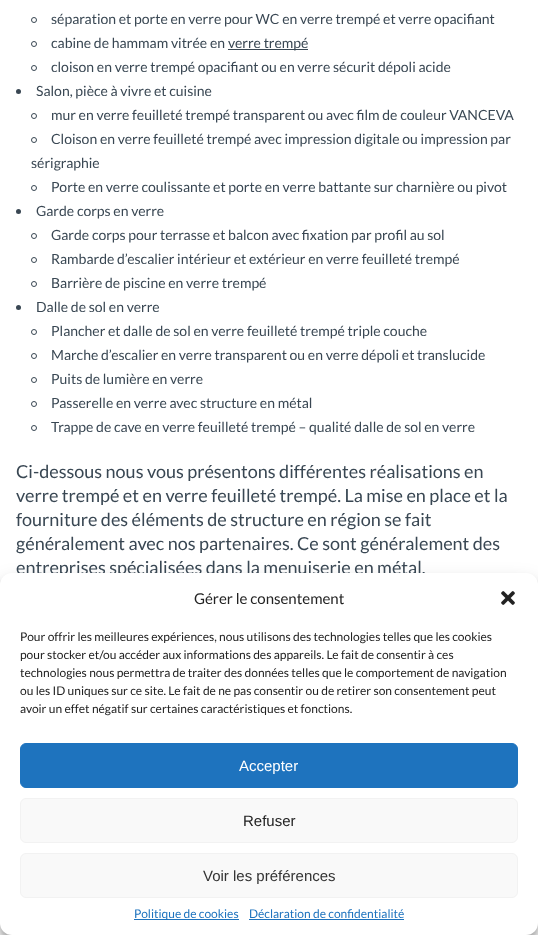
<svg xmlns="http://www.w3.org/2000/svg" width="538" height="935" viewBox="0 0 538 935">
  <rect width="100%" height="100%" fill="#fff"/>
  <circle cx="34" cy="20" r="2.5" fill="none" stroke="#394753"/>
  <circle cx="34" cy="44" r="2.5" fill="none" stroke="#394753"/>
  <path d="M228 49h80v1H228z" fill="#394753"/>
  <circle cx="34" cy="68" r="2.5" fill="none" stroke="#394753"/>
  <circle cx="18.5" cy="91.5" r="2.5" fill="#394753"/>
  <circle cx="34" cy="116" r="2.5" fill="none" stroke="#394753"/>
  <circle cx="34" cy="140" r="2.5" fill="none" stroke="#394753"/>
  <circle cx="34" cy="188" r="2.5" fill="none" stroke="#394753"/>
  <circle cx="18.5" cy="211.5" r="2.5" fill="#394753"/>
  <circle cx="34" cy="236" r="2.5" fill="none" stroke="#394753"/>
  <circle cx="34" cy="260" r="2.5" fill="none" stroke="#394753"/>
  <circle cx="34" cy="284" r="2.5" fill="none" stroke="#394753"/>
  <circle cx="18.5" cy="307.5" r="2.5" fill="#394753"/>
  <circle cx="34" cy="332" r="2.5" fill="none" stroke="#394753"/>
  <circle cx="34" cy="356" r="2.5" fill="none" stroke="#394753"/>
  <circle cx="34" cy="380" r="2.5" fill="none" stroke="#394753"/>
  <circle cx="34" cy="404" r="2.5" fill="none" stroke="#394753"/>
  <circle cx="34" cy="428" r="2.5" fill="none" stroke="#394753"/>
  <rect y="579" width="538" height="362" rx="12" fill="#0000003b" filter="blur(3px)"/>
  <rect y="583" width="538" height="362" rx="12" fill="#00000030" filter="blur(10px)"/>
  <g font-family="Lato" font-size="14" fill="#394753">
    <text x="51" y="24">séparation et porte en verre pour WC en verre trempé et verre opacifiant</text>
    <text x="51" y="48">cabine de hammam vitrée en</text>
    <text x="228" y="48">verre trempé</text>
    <text x="51" y="72">cloison en verre trempé opacifiant ou en verre sécurit dépoli acide</text>
    <text x="36" y="96">Salon, pièce à vivre et cuisine</text>
    <text x="51" y="120">mur en verre feuilleté trempé transparent ou avec film de couleur VANCEVA</text>
    <text x="51" y="144">Cloison en verre feuilleté trempé avec impression digitale ou impression par</text>
    <text x="31" y="168">sérigraphie</text>
    <text x="51" y="192">Porte en verre coulissante et porte en verre battante sur charnière ou pivot</text>
    <text x="36" y="216">Garde corps en verre</text>
    <text x="51" y="240">Garde corps pour terrasse et balcon avec fixation par profil au sol</text>
    <text x="51" y="264">Rambarde d’escalier intérieur et extérieur en verre feuilleté trempé</text>
    <text x="51" y="288">Barrière de piscine en verre trempé</text>
    <text x="36" y="312">Dalle de sol en verre</text>
    <text x="51" y="336">Plancher et dalle de sol en verre feuilleté trempé triple couche</text>
    <text x="51" y="360">Marche d’escalier en verre transparent ou en verre dépoli et translucide</text>
    <text x="51" y="384">Puits de lumière en verre</text>
    <text x="51" y="408">Passerelle en verre avec structure en métal</text>
    <text x="51" y="432">Trappe de cave en verre feuilleté trempé – qualité dalle de sol en verre</text>
  </g>
  <g font-family="Lato" font-size="18" fill="#394753">
    <text x="16" y="478">Ci-dessous nous vous présentons différentes réalisations en</text>
    <text x="16" y="502">verre trempé et en verre feuilleté trempé. La mise en place et la</text>
    <text x="16" y="526">fourniture des éléments de structure en région se fait</text>
    <text x="16" y="550">généralement avec nos partenaires. Ce sont généralement des</text>
    <text x="16" y="574">entreprises spécialisées dans la menuiserie en métal.</text>
  </g>
  <rect y="573" width="538" height="362" rx="12" fill="#fff"/>
  <text x="194" y="604" font-family="Lato" font-size="15" fill="#222">Gérer le consentement</text>
  <image x="501" y="591" width="14" height="14" href="img/1.png"/>
  <g font-family="Lato" font-size="12" fill="#222">
    <text x="20" y="641">Pour offrir les meilleures expériences, nous utilisons des technologies telles que les cookies</text>
    <text x="20" y="659">pour stocker et/ou accéder aux informations des appareils. Le fait de consentir à ces</text>
    <text x="20" y="677">technologies nous permettra de traiter des données telles que le comportement de navigation</text>
    <text x="20" y="695">ou les ID uniques sur ce site. Le fait de ne pas consentir ou de retirer son consentement peut</text>
    <text x="20" y="713">avoir un effet négatif sur certaines caractéristiques et fonctions.</text>
  </g>
  <rect x="20.5" y="743.5" width="497" height="44" rx="5.5" fill="#1e73be" stroke="#1e73be"/>
  <text x="239" y="771" font-family="Liberation Sans" font-size="15" fill="#fff">Accepter</text>
  <rect x="20.5" y="798.5" width="497" height="44" rx="5.5" fill="#f9f9f9" stroke="#f2f2f2"/>
  <text x="243" y="826" font-family="Liberation Sans" font-size="15" fill="#222">Refuser</text>
  <rect x="20.5" y="853.5" width="497" height="44" rx="5.5" fill="#f9f9f9" stroke="#f2f2f2"/>
  <text x="203" y="881" font-family="Liberation Sans" font-size="15" fill="#333">Voir les préférences</text>
  <path d="M134 919h105v1H134z" fill="#1e73be"/>
  <g font-family="Lato" font-size="12" fill="#1e73be">
    <text x="134" y="918">Politique de cookies</text>
    <text x="249" y="918">Déclaration de confidentialité</text>
  </g>
  <path d="M249 919h155v1H249z" fill="#1e73be"/>
</svg>
